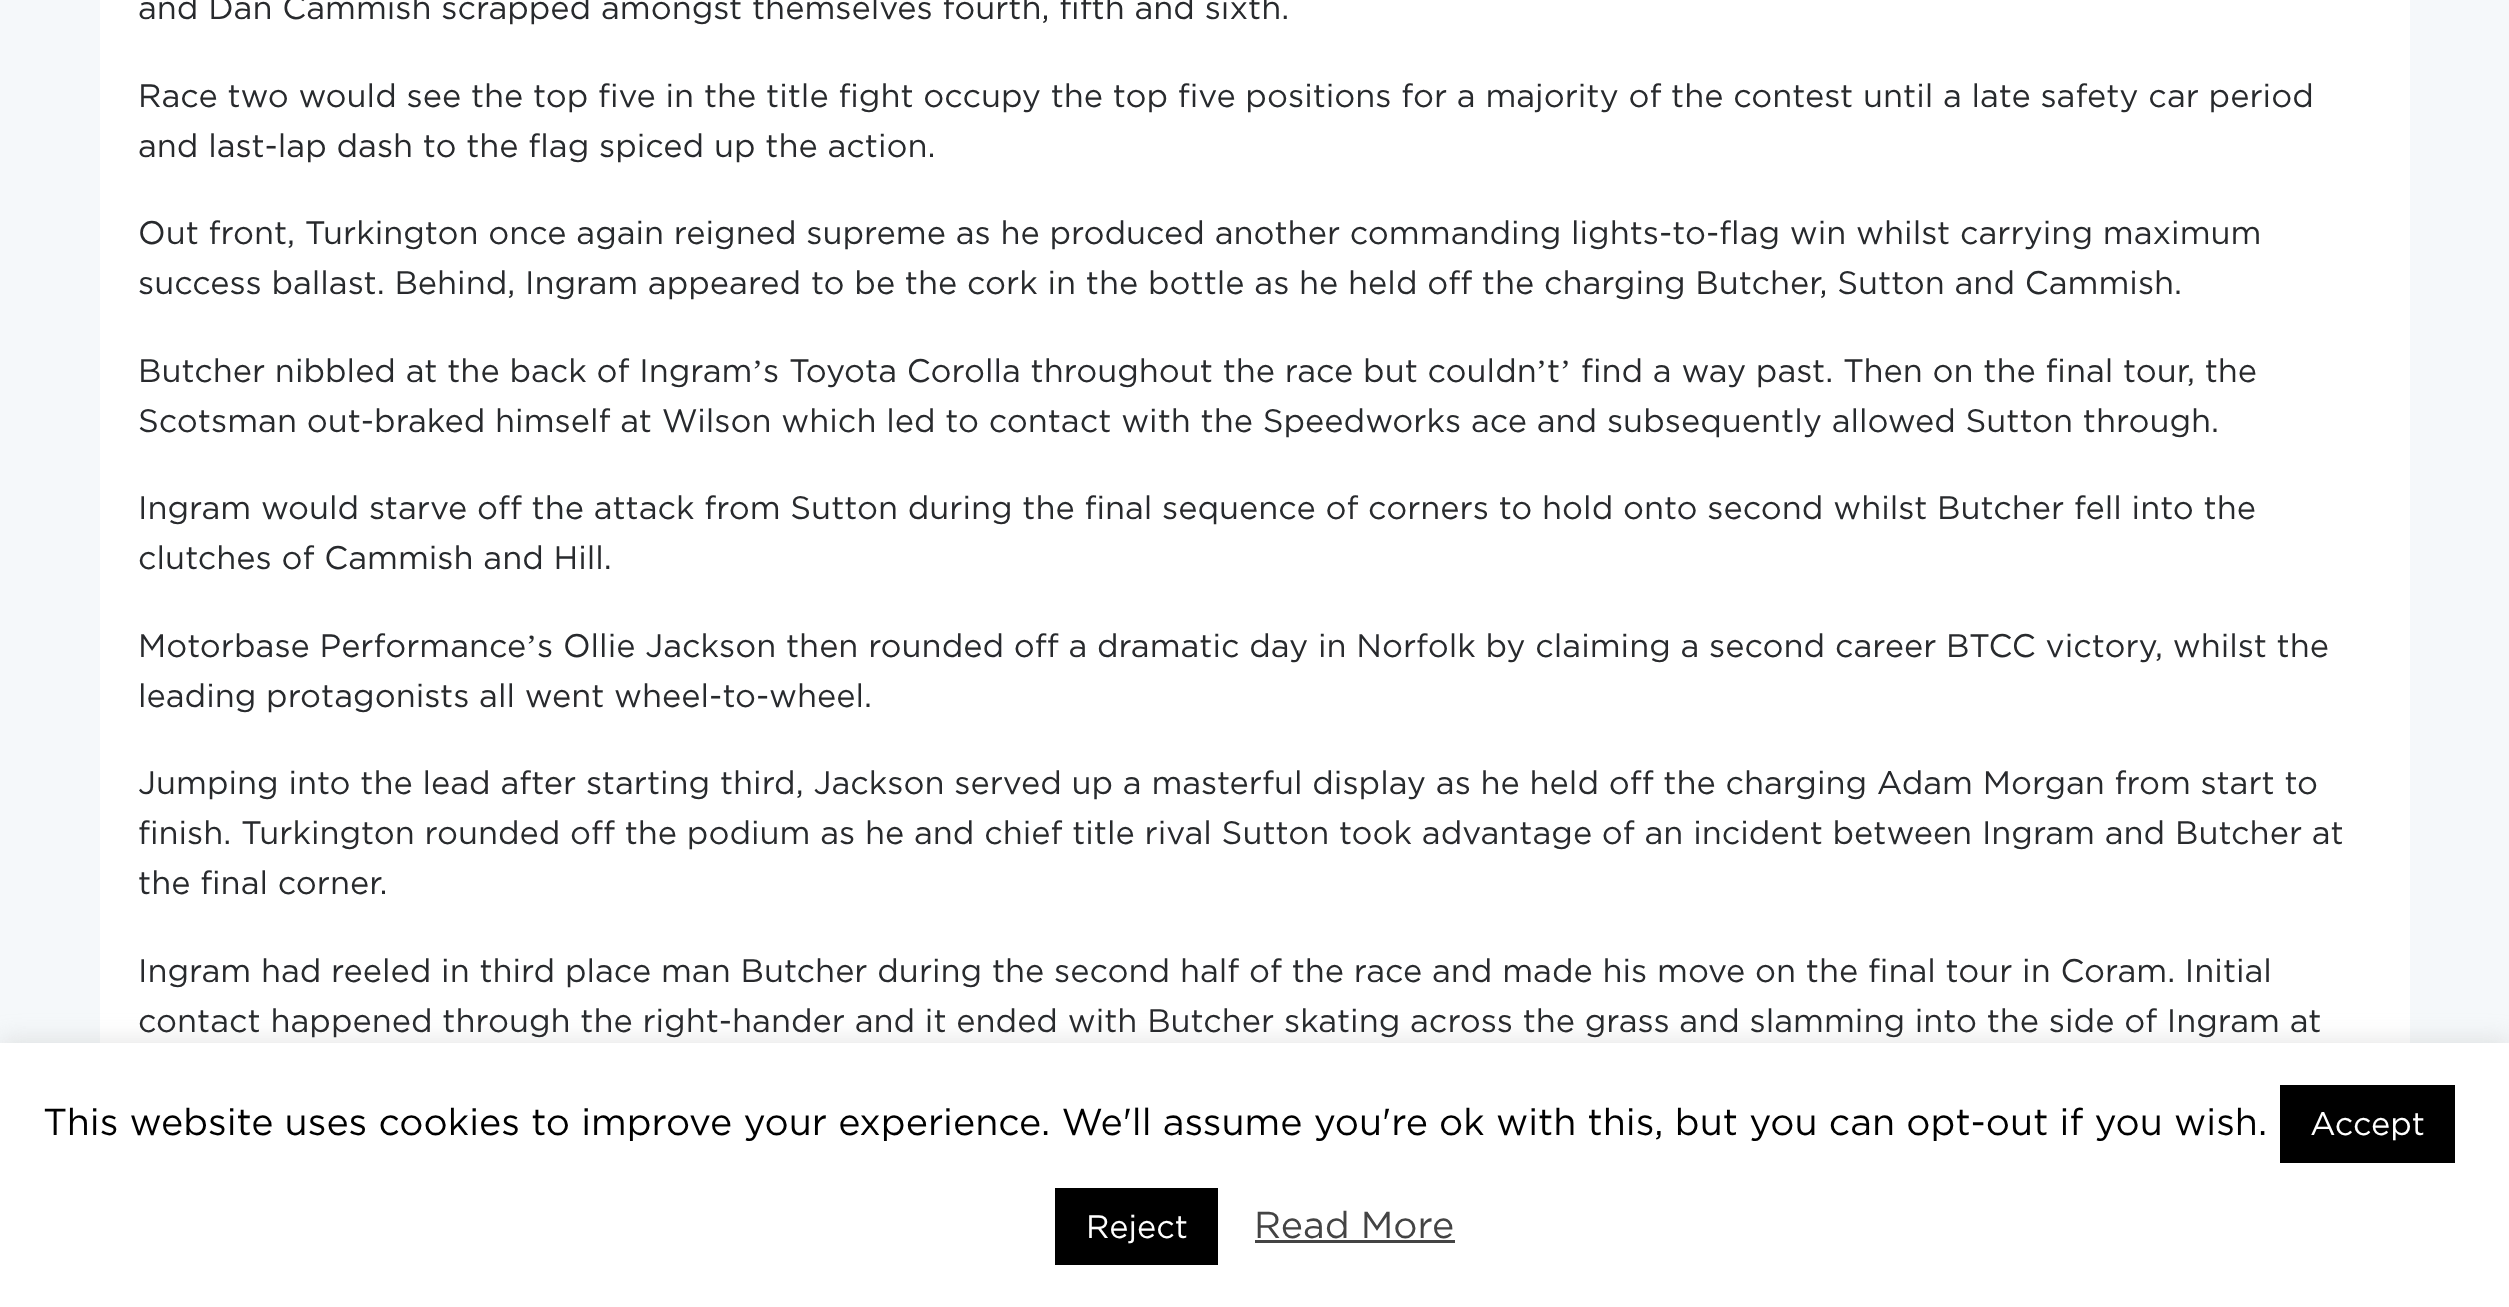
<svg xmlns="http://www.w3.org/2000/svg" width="2509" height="1307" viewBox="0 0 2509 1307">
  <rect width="100%" height="100%" fill="#f5f8fa"/>
  <path d="M100 0h2310v1043H100z" fill="#fff"/>
  <path d="M0 1040h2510v265H0z" fill="#acabab4d" filter="blur(12.5px)"/>
  <path d="M0 1043h2509v264H0z" fill="#fff"/>
  <path d="M2280 1085h175v78H2280z" fill="#000"/>
  <path d="M1055 1188h163v77H1055z" fill="#000"/>
  <path d="M1255 1240h200v3H1255z" fill="#444"/>
  <g font-family="Gotham" font-size="32.5" fill="#282a2d">
    <text x="138" y="19">and Dan Cammish scrapped amongst themselves fourth, fifth and sixth.</text>
    <text x="138" y="107">Race two would see the top five in the title fight occupy the top five positions for a majority of the contest until a late safety car period</text>
    <text x="138" y="157">and last-lap dash to the flag spiced up the action.</text>
    <text x="138" y="244">Out front, Turkington once again reigned supreme as he produced another commanding lights-to-flag win whilst carrying maximum</text>
    <text x="138" y="294">success ballast. Behind, Ingram appeared to be the cork in the bottle as he held off the charging Butcher, Sutton and Cammish.</text>
    <text x="138" y="382">Butcher nibbled at the back of Ingram</text>
  </g>
  <text x="752" y="382" font-family="Liberation Serif" font-size="32.5" fill="#282a2d">’</text>
  <text x="763" y="382" font-family="Gotham" font-size="32.5" fill="#282a2d">s Toyota Corolla throughout the race but couldn</text>
  <text x="1536" y="382" font-family="Liberation Serif" font-size="32.5" fill="#282a2d">’</text>
  <text x="1547" y="382" font-family="Gotham" font-size="32.5" fill="#282a2d">t</text>
  <text x="1560" y="382" font-family="Liberation Serif" font-size="32.5" fill="#282a2d">’</text>
  <g font-family="Gotham" font-size="32.5" fill="#282a2d">
    <text x="1581" y="382">find a way past. Then on the final tour, the</text>
    <text x="138" y="432">Scotsman out-braked himself at Wilson which led to contact with the Speedworks ace and subsequently allowed Sutton through.</text>
    <text x="138" y="519">Ingram would starve off the attack from Sutton during the final sequence of corners to hold onto second whilst Butcher fell into the</text>
    <text x="138" y="569">clutches of Cammish and Hill.</text>
    <text x="138" y="657">Motorbase Performance</text>
  </g>
  <text x="526" y="657" font-family="Liberation Serif" font-size="32.5" fill="#282a2d">’</text>
  <g font-family="Gotham" font-size="32.5" fill="#282a2d">
    <text x="537" y="657">s Ollie Jackson then rounded off a dramatic day in Norfolk by claiming a second career BTCC victory, whilst the</text>
    <text x="138" y="707">leading protagonists all went wheel-to-wheel.</text>
    <text x="138" y="794">Jumping into the lead after starting third, Jackson served up a masterful display as he held off the charging Adam Morgan from start to</text>
    <text x="138" y="844">finish. Turkington rounded off the podium as he and chief title rival Sutton took advantage of an incident between Ingram and Butcher at</text>
    <text x="138" y="894">the final corner.</text>
    <text x="138" y="982">Ingram had reeled in third place man Butcher during the second half of the race and made his move on the final tour in Coram. Initial</text>
    <text x="138" y="1032">contact happened through the right-hander and it ended with Butcher skating across the grass and slamming into the side of Ingram at</text>
  </g>
  <text x="43" y="1135" font-family="Gotham" font-size="37.5" fill="#000">This website uses cookies to improve your experience. We'll assume you're ok with this, but you can opt-out if you wish.</text>
  <g font-family="Gotham" font-size="32.5" fill="#fff">
    <text x="2310" y="1135">Accept</text>
    <text x="1086" y="1238">Reject</text>
  </g>
  <text x="1254" y="1238" font-family="Gotham" font-size="37.5" fill="#444">Read More</text>
</svg>
